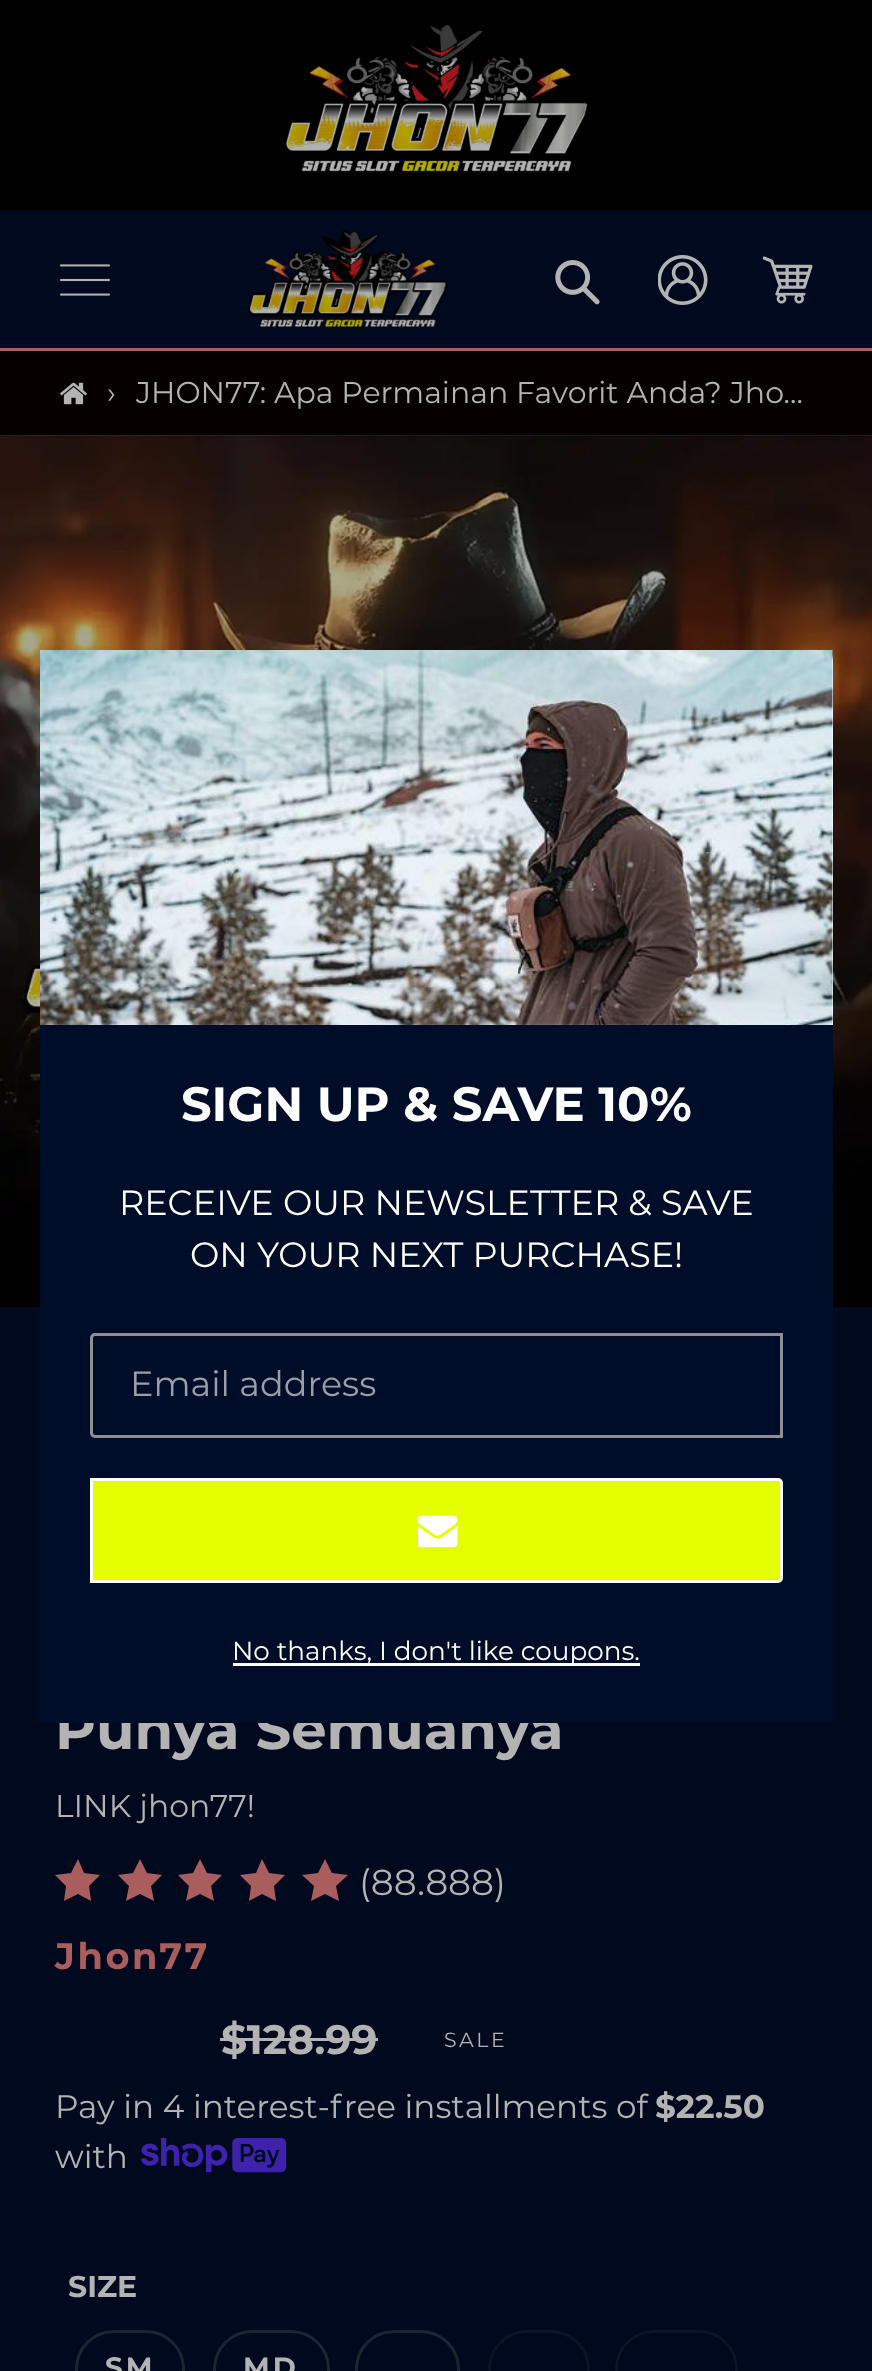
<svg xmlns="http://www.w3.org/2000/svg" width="872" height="2371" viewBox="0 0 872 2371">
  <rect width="100%" height="100%" fill="#00091d"/>
  <path d="M0 0h872v210H0z" fill="#000"/>
  <image x="283" y="24" width="307" height="149" href="img/1.png"/>
  <path d="M0 348h872v3H0z" fill="#aa5d5d"/>
  <image x="60" y="264" width="50" height="32" href="img/2.png"/>
  <image x="247" y="230" width="201" height="97" href="img/3.png"/>
  <image x="555" y="260" width="45" height="45" href="img/4.png"/>
  <image x="658" y="255" width="50" height="50" href="img/5.png"/>
  <image x="763" y="256" width="50" height="48" href="img/6.png"/>
  <path d="M0 351h872v84H0z" fill="#060000"/>
  <image x="60" y="382" width="27" height="23" href="img/7.png"/>
  <image x="0" y="435" width="872" height="873" href="img/8.png"/>
  <path d="M78 1859L84 1873L100 1875L89 1886L91 1901L78 1894L64 1901L66 1886L55 1875L71 1873Z" fill="#aa5d5d"/>
  <path d="M140 1859L147 1873L162 1875L151 1886L154 1901L140 1894L126 1901L129 1886L118 1875L133 1873Z" fill="#aa5d5d"/>
  <path d="M200 1859L207 1873L222 1875L211 1886L214 1901L200 1894L186 1901L189 1886L178 1875L193 1873Z" fill="#aa5d5d"/>
  <path d="M262 1859L269 1873L285 1875L274 1886L276 1901L262 1894L249 1901L251 1886L240 1875L256 1873Z" fill="#aa5d5d"/>
  <path d="M325 1859L332 1873L348 1875L336 1886L339 1901L325 1894L311 1901L314 1886L302 1875L318 1873Z" fill="#aa5d5d"/>
  <path d="M220 2038h158v3H220z" fill="#b3b3b3"/>
  <image x="141" y="2138" width="146" height="35" href="img/9.png"/>
  <rect x="76.5" y="2331.5" width="107" height="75" rx="37.5" fill="none" stroke="#1e2432" stroke-width="3"/>
  <rect x="214.5" y="2331.5" width="114" height="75" rx="37.5" fill="none" stroke="#1e2432" stroke-width="3"/>
  <rect x="356.5" y="2331.5" width="102" height="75" rx="37.5" fill="none" stroke="#1e2432" stroke-width="3"/>
  <rect x="489.5" y="2331.5" width="99" height="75" rx="37.5" fill="none" stroke="#0c1425" stroke-width="3"/>
  <rect x="616.5" y="2331.5" width="120" height="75" rx="37.5" fill="none" stroke="#0c1425" stroke-width="3"/>
  <g font-family="Montserrat" font-size="30" fill="#b3b3b3">
    <text x="107" y="403">›</text>
    <text x="136" y="403">JHON77: Apa Permainan Favorit Anda? Jho…</text>
  </g>
  <text x="55" y="1749" font-family="Montserrat" font-size="56" font-weight="bold" fill="#b3b3b3">Punya Semuanya</text>
  <text x="55" y="1817" font-family="Montserrat" font-size="31.5" fill="#b3b3b3">LINK jhon77!</text>
  <text x="359" y="1895" font-family="Montserrat" font-size="36" fill="#b3b3b3">(88.888)</text>
  <text x="55" y="1969" font-family="Montserrat" font-size="36.75" font-weight="bold" letter-spacing="2.5" fill="#aa5d5d">Jhon77</text>
  <text x="221" y="2054" font-family="Montserrat" font-size="41" font-weight="bold" fill="#b3b3b3">$128.99</text>
  <text x="444" y="2047" font-family="Montserrat" font-size="20.5" letter-spacing="2.5" fill="#b3b3b3">SALE</text>
  <text x="55" y="2118" font-family="Montserrat" font-size="32.7" fill="#b3b3b3">Pay in 4 interest-free installments of</text>
  <text x="655" y="2118" font-family="Montserrat" font-size="32.7" font-weight="bold" fill="#b3b3b3">$22.50</text>
  <text x="55" y="2168" font-family="Montserrat" font-size="32.7" fill="#b3b3b3">with</text>
  <text x="68" y="2297" font-family="Montserrat" font-size="30" font-weight="bold" fill="#b3b3b3">SIZE</text>
  <g font-family="Montserrat" font-size="28" font-weight="bold" letter-spacing="3" fill="#b3b3b3">
    <text x="105" y="2377">SM</text>
    <text x="243" y="2377">MD</text>
  </g>
  <rect x="40" y="650" width="793" height="1073" rx="10" fill="#fff"/>
  <image x="40" y="650" width="793" height="375" href="img/10.png"/>
  <path d="M40 1025h793v698H40z" fill="#000d29"/>
  <text x="181" y="1121" font-family="Montserrat" font-size="48" font-weight="bold" fill="#fff">SIGN UP &amp; SAVE 10%</text>
  <g font-family="Montserrat" font-size="35" fill="#fff">
    <text x="119" y="1215">RECEIVE OUR NEWSLETTER &amp; SAVE</text>
    <text x="190" y="1267">ON YOUR NEXT PURCHASE!</text>
  </g>
  <path d="M95 1334.5H781.5V1436.5H95C93 1436.5 91.5 1435 91.5 1433V1338C91.5 1336 93 1334.5 95 1334.5Z" fill="none" stroke="#909090" stroke-width="3"/>
  <text x="130" y="1396" font-family="Montserrat" font-size="35" fill="#999ea9">Email address</text>
  <path d="M91.5 1479.5H778C780 1479.5 781.5 1481 781.5 1483V1578C781.5 1580 780 1581.5 778 1581.5H91.5Z" fill="#e5ff00" stroke="#fff" stroke-width="3"/>
  <image x="418" y="1515" width="40" height="33" href="img/11.png"/>
  <path d="M233 1663h407v3H233z" fill="#fff"/>
  <text x="232" y="1660" font-family="Montserrat" font-size="26.25" fill="#fff">No thanks, I don't like coupons.</text>
</svg>
